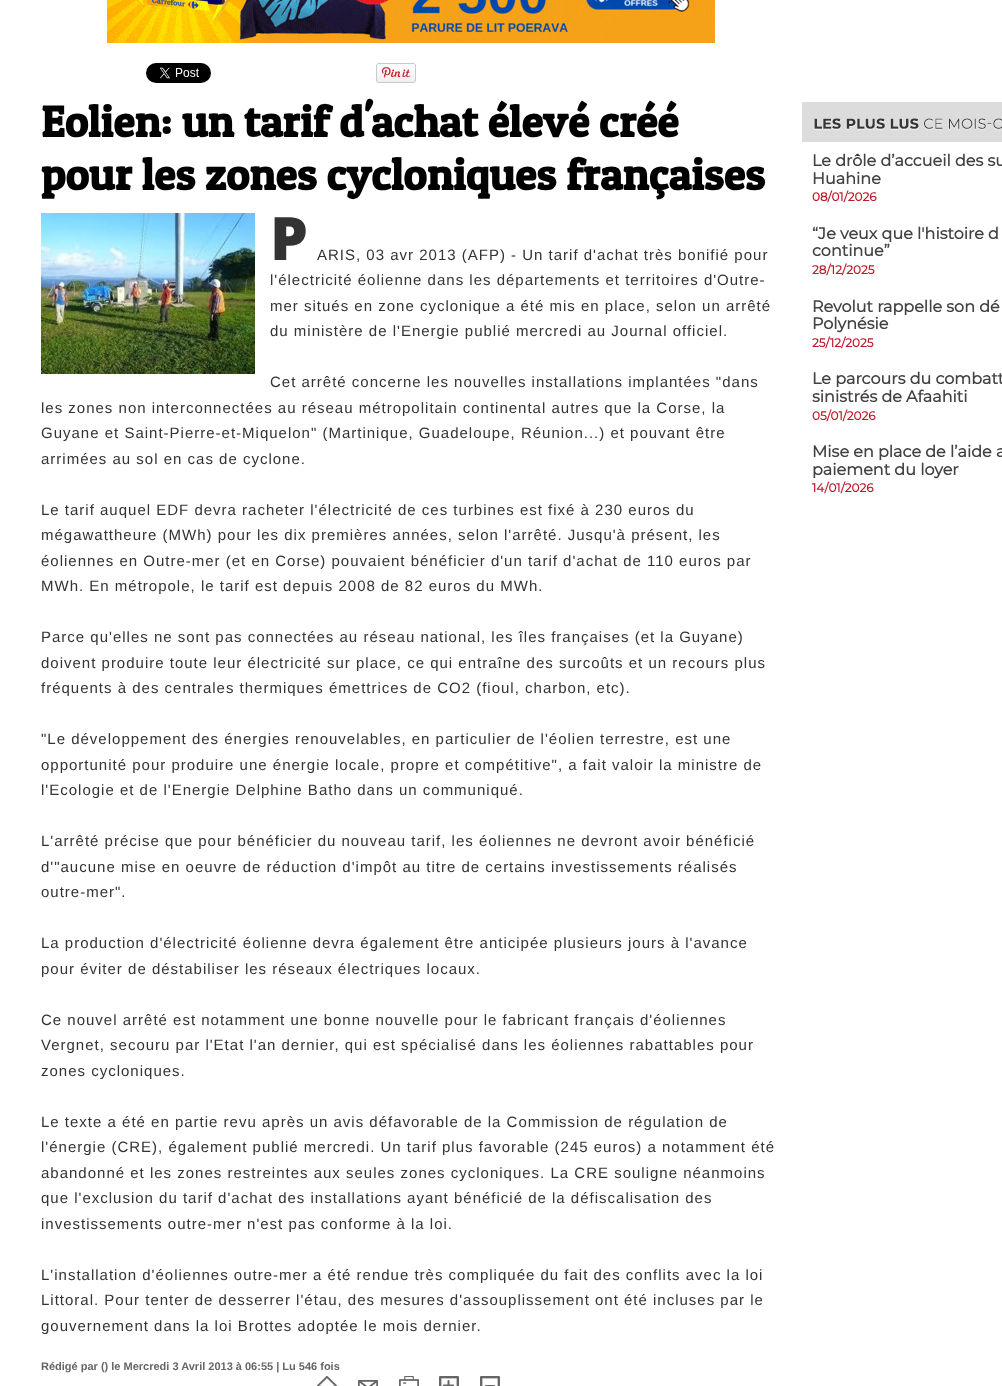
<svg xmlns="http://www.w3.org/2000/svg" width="1002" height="1386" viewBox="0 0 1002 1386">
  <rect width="100%" height="100%" fill="#fff"/>
  <image x="107" y="0" width="608" height="43" href="img/1.png"/>
  <image x="146" y="63" width="65" height="20" href="img/2.png"/>
  <image x="376" y="63" width="40" height="20" href="img/3.png"/>
  <image x="41" y="213" width="214" height="161" href="img/4.png"/>
  <image x="317" y="1376" width="20" height="10" href="img/5.png"/>
  <image x="358" y="1380" width="20" height="6" href="img/6.png"/>
  <image x="399" y="1376" width="20" height="10" href="img/7.png"/>
  <image x="439" y="1376" width="20" height="10" href="img/8.png"/>
  <image x="480" y="1376" width="20" height="10" href="img/9.png"/>
  <image x="802" y="102" width="200" height="40" href="img/10.png"/>
  <g font-family="Patua One" font-size="44" font-weight="bold" fill="#000">
    <text x="41" y="137">Eolien: un tarif d'achat élevé créé</text>
    <text x="41" y="190">pour les zones cycloniques françaises</text>
  </g>
  <text x="270" y="260" font-family="Noto Sans" font-size="60" font-weight="900" letter-spacing="1" fill="#333">P</text>
  <g font-family="Liberation Sans" font-size="15" letter-spacing="1" fill="#333">
    <text x="317" y="260">ARIS, 03 avr 2013 (AFP) - Un tarif d'achat très bonifié pour</text>
    <text x="270" y="285">l'électricité éolienne dans les départements et territoires d'Outre-</text>
    <text x="270" y="311">mer situés en zone cyclonique a été mis en place, selon un arrêté</text>
    <text x="270" y="336">du ministère de l'Energie publié mercredi au Journal officiel.</text>
    <text x="270" y="387">Cet arrêté concerne les nouvelles installations implantées "dans</text>
    <text x="41" y="413">les zones non interconnectées au réseau métropolitain continental autres que la Corse, la</text>
    <text x="41" y="438">Guyane et Saint-Pierre-et-Miquelon" (Martinique, Guadeloupe, Réunion...) et pouvant être</text>
    <text x="41" y="464">arrimées au sol en cas de cyclone.</text>
    <text x="41" y="515">Le tarif auquel EDF devra racheter l'électricité de ces turbines est fixé à 230 euros du</text>
    <text x="41" y="540">mégawattheure (MWh) pour les dix premières années, selon l'arrêté. Jusqu'à présent, les</text>
    <text x="41" y="566">éoliennes en Outre-mer (et en Corse) pouvaient bénéficier d'un tarif d'achat de 110 euros par</text>
    <text x="41" y="591">MWh. En métropole, le tarif est depuis 2008 de 82 euros du MWh.</text>
    <text x="41" y="642">Parce qu'elles ne sont pas connectées au réseau national, les îles françaises (et la Guyane)</text>
    <text x="41" y="668">doivent produire toute leur électricité sur place, ce qui entraîne des surcoûts et un recours plus</text>
    <text x="41" y="693">fréquents à des centrales thermiques émettrices de CO2 (fioul, charbon, etc).</text>
    <text x="41" y="744">"Le développement des énergies renouvelables, en particulier de l'éolien terrestre, est une</text>
    <text x="41" y="770">opportunité pour produire une énergie locale, propre et compétitive", a fait valoir la ministre de</text>
    <text x="41" y="795">l'Ecologie et de l'Energie Delphine Batho dans un communiqué.</text>
    <text x="41" y="846">L'arrêté précise que pour bénéficier du nouveau tarif, les éoliennes ne devront avoir bénéficié</text>
    <text x="41" y="872">d'"aucune mise en oeuvre de réduction d'impôt au titre de certains investissements réalisés</text>
    <text x="41" y="897">outre-mer".</text>
    <text x="41" y="948">La production d'électricité éolienne devra également être anticipée plusieurs jours à l'avance</text>
    <text x="41" y="974">pour éviter de déstabiliser les réseaux électriques locaux.</text>
    <text x="41" y="1025">Ce nouvel arrêté est notamment une bonne nouvelle pour le fabricant français d'éoliennes</text>
    <text x="41" y="1050">Vergnet, secouru par l'Etat l'an dernier, qui est spécialisé dans les éoliennes rabattables pour</text>
    <text x="41" y="1076">zones cycloniques.</text>
    <text x="41" y="1127">Le texte a été en partie revu après un avis défavorable de la Commission de régulation de</text>
    <text x="41" y="1152">l'énergie (CRE), également publié mercredi. Un tarif plus favorable (245 euros) a notamment été</text>
    <text x="41" y="1178">abandonné et les zones restreintes aux seules zones cycloniques. La CRE souligne néanmoins</text>
    <text x="41" y="1203">que l'exclusion du tarif d'achat des installations ayant bénéficié de la défiscalisation des</text>
    <text x="41" y="1229">investissements outre-mer n'est pas conforme à la loi.</text>
    <text x="41" y="1280">L'installation d'éoliennes outre-mer a été rendue très compliquée du fait des conflits avec la loi</text>
    <text x="41" y="1305">Littoral. Pour tenter de desserrer l'étau, des mesures d'assouplissement ont été incluses par le</text>
    <text x="41" y="1331">gouvernement dans la loi Brottes adoptée le mois dernier.</text>
  </g>
  <text x="41" y="1370" font-family="Liberation Sans" font-size="11" font-weight="bold" fill="#666">Rédigé par () le Mercredi 3 Avril 2013 à 06:55 | Lu 546 fois</text>
  <g font-family="Montserrat" font-size="16" font-weight="bold" fill="#424242">
    <text x="812" y="166">Le drôle d’accueil des su</text>
    <text x="812" y="184">Huahine</text>
  </g>
  <text x="812" y="201" font-family="Montserrat" font-size="12" font-weight="bold" fill="#bb1929">08/01/2026</text>
  <g font-family="Montserrat" font-size="16" font-weight="bold" fill="#424242">
    <text x="812" y="239">“Je veux que l'histoire d</text>
    <text x="812" y="256">continue”</text>
  </g>
  <text x="812" y="274" font-family="Montserrat" font-size="12" font-weight="bold" fill="#bb1929">28/12/2025</text>
  <g font-family="Montserrat" font-size="16" font-weight="bold" fill="#424242">
    <text x="812" y="312">Revolut rappelle son dé</text>
    <text x="812" y="329">Polynésie</text>
  </g>
  <text x="812" y="347" font-family="Montserrat" font-size="12" font-weight="bold" fill="#bb1929">25/12/2025</text>
  <g font-family="Montserrat" font-size="16" font-weight="bold" fill="#424242">
    <text x="812" y="384">Le parcours du combatt</text>
    <text x="812" y="402">sinistrés de Afaahiti</text>
  </g>
  <text x="812" y="420" font-family="Montserrat" font-size="12" font-weight="bold" fill="#bb1929">05/01/2026</text>
  <g font-family="Montserrat" font-size="16" font-weight="bold" fill="#424242">
    <text x="812" y="457">Mise en place de l’aide a</text>
    <text x="812" y="475">paiement du loyer</text>
  </g>
  <text x="812" y="492" font-family="Montserrat" font-size="12" font-weight="bold" fill="#bb1929">14/01/2026</text>
</svg>
